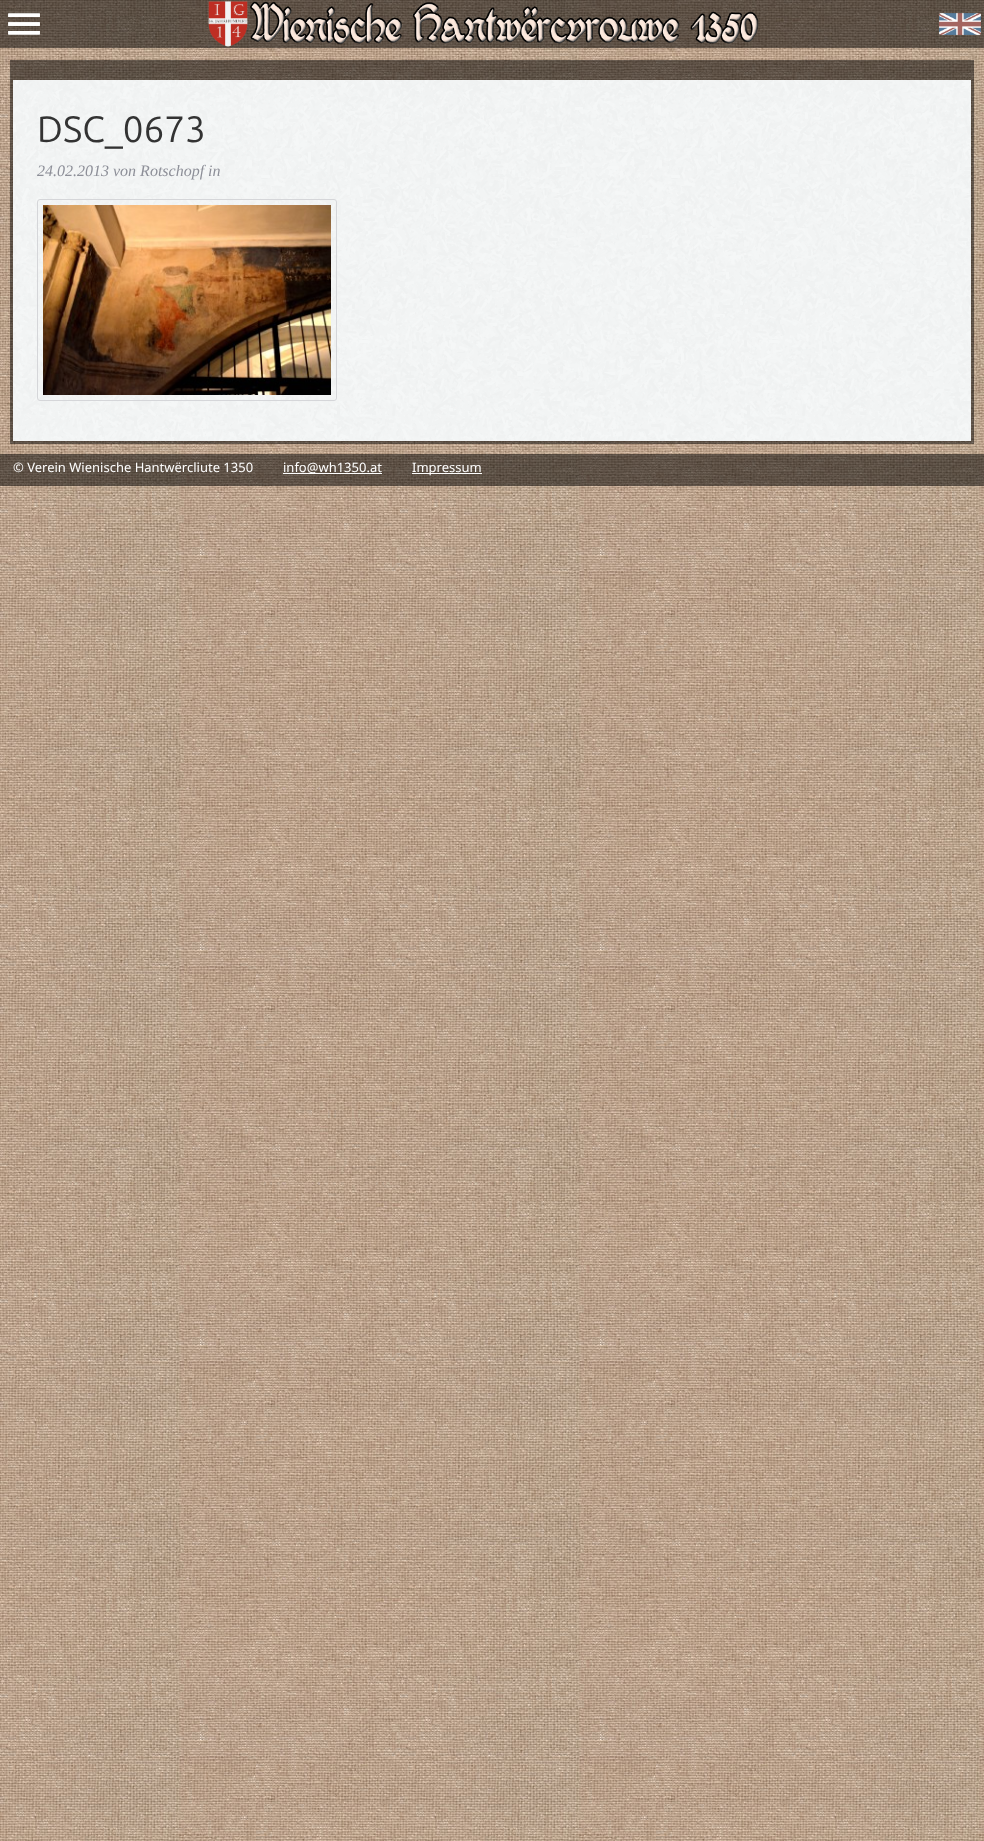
<svg xmlns="http://www.w3.org/2000/svg" width="984" height="1841" viewBox="0 0 984 1841">
  <rect width="100%" height="100%" fill="#fff"/>
  <image x="0" y="0" width="984" height="1841" href="img/1.png"/>
  <path d="M0 0h984v48H0z" fill="#00000080"/>
  <image x="8" y="13" width="32" height="22" href="img/2.png"/>
  <image x="8" y="13" width="32" height="22" href="img/3.png"/>
  <image x="208" y="1" width="40" height="46" href="img/4.png"/>
  <image x="250" y="1" width="509" height="44" href="img/5.png"/>
  <image x="939" y="13" width="42" height="22" href="img/6.png"/>
  <path d="M10 60h964v384H10z" fill="#00000080"/>
  <image x="13" y="80" width="958" height="361" href="img/7.png"/>
  <rect x="37.5" y="199.5" width="299" height="201" rx="2.5" fill="none" stroke="#d5d6d9"/>
  <image x="43" y="205" width="288" height="190" href="img/8.png"/>
  <path d="M0 454h984v32H0z" fill="#00000080"/>
  <path d="M283 473h99v1H283z" fill="#fefefe"/>
  <path d="M412 473h70v1H412z" fill="#fefefe"/>
  <text x="37" y="142" font-family="Ubuntu" font-size="36.75" fill="#333">DSC_0673</text>
  <text x="37" y="176" font-family="Liberation Serif" font-size="16" font-style="italic" fill="#8d8f98">24.02.2013 von Rotschopf in</text>
  <g font-family="Noto Sans" font-size="13" fill="#fefefe">
    <text x="13" y="472">© Verein Wienische Hantwërcliute 1350</text>
    <text x="283" y="472">info@wh1350.at</text>
    <text x="412" y="472">Impressum</text>
  </g>
</svg>
